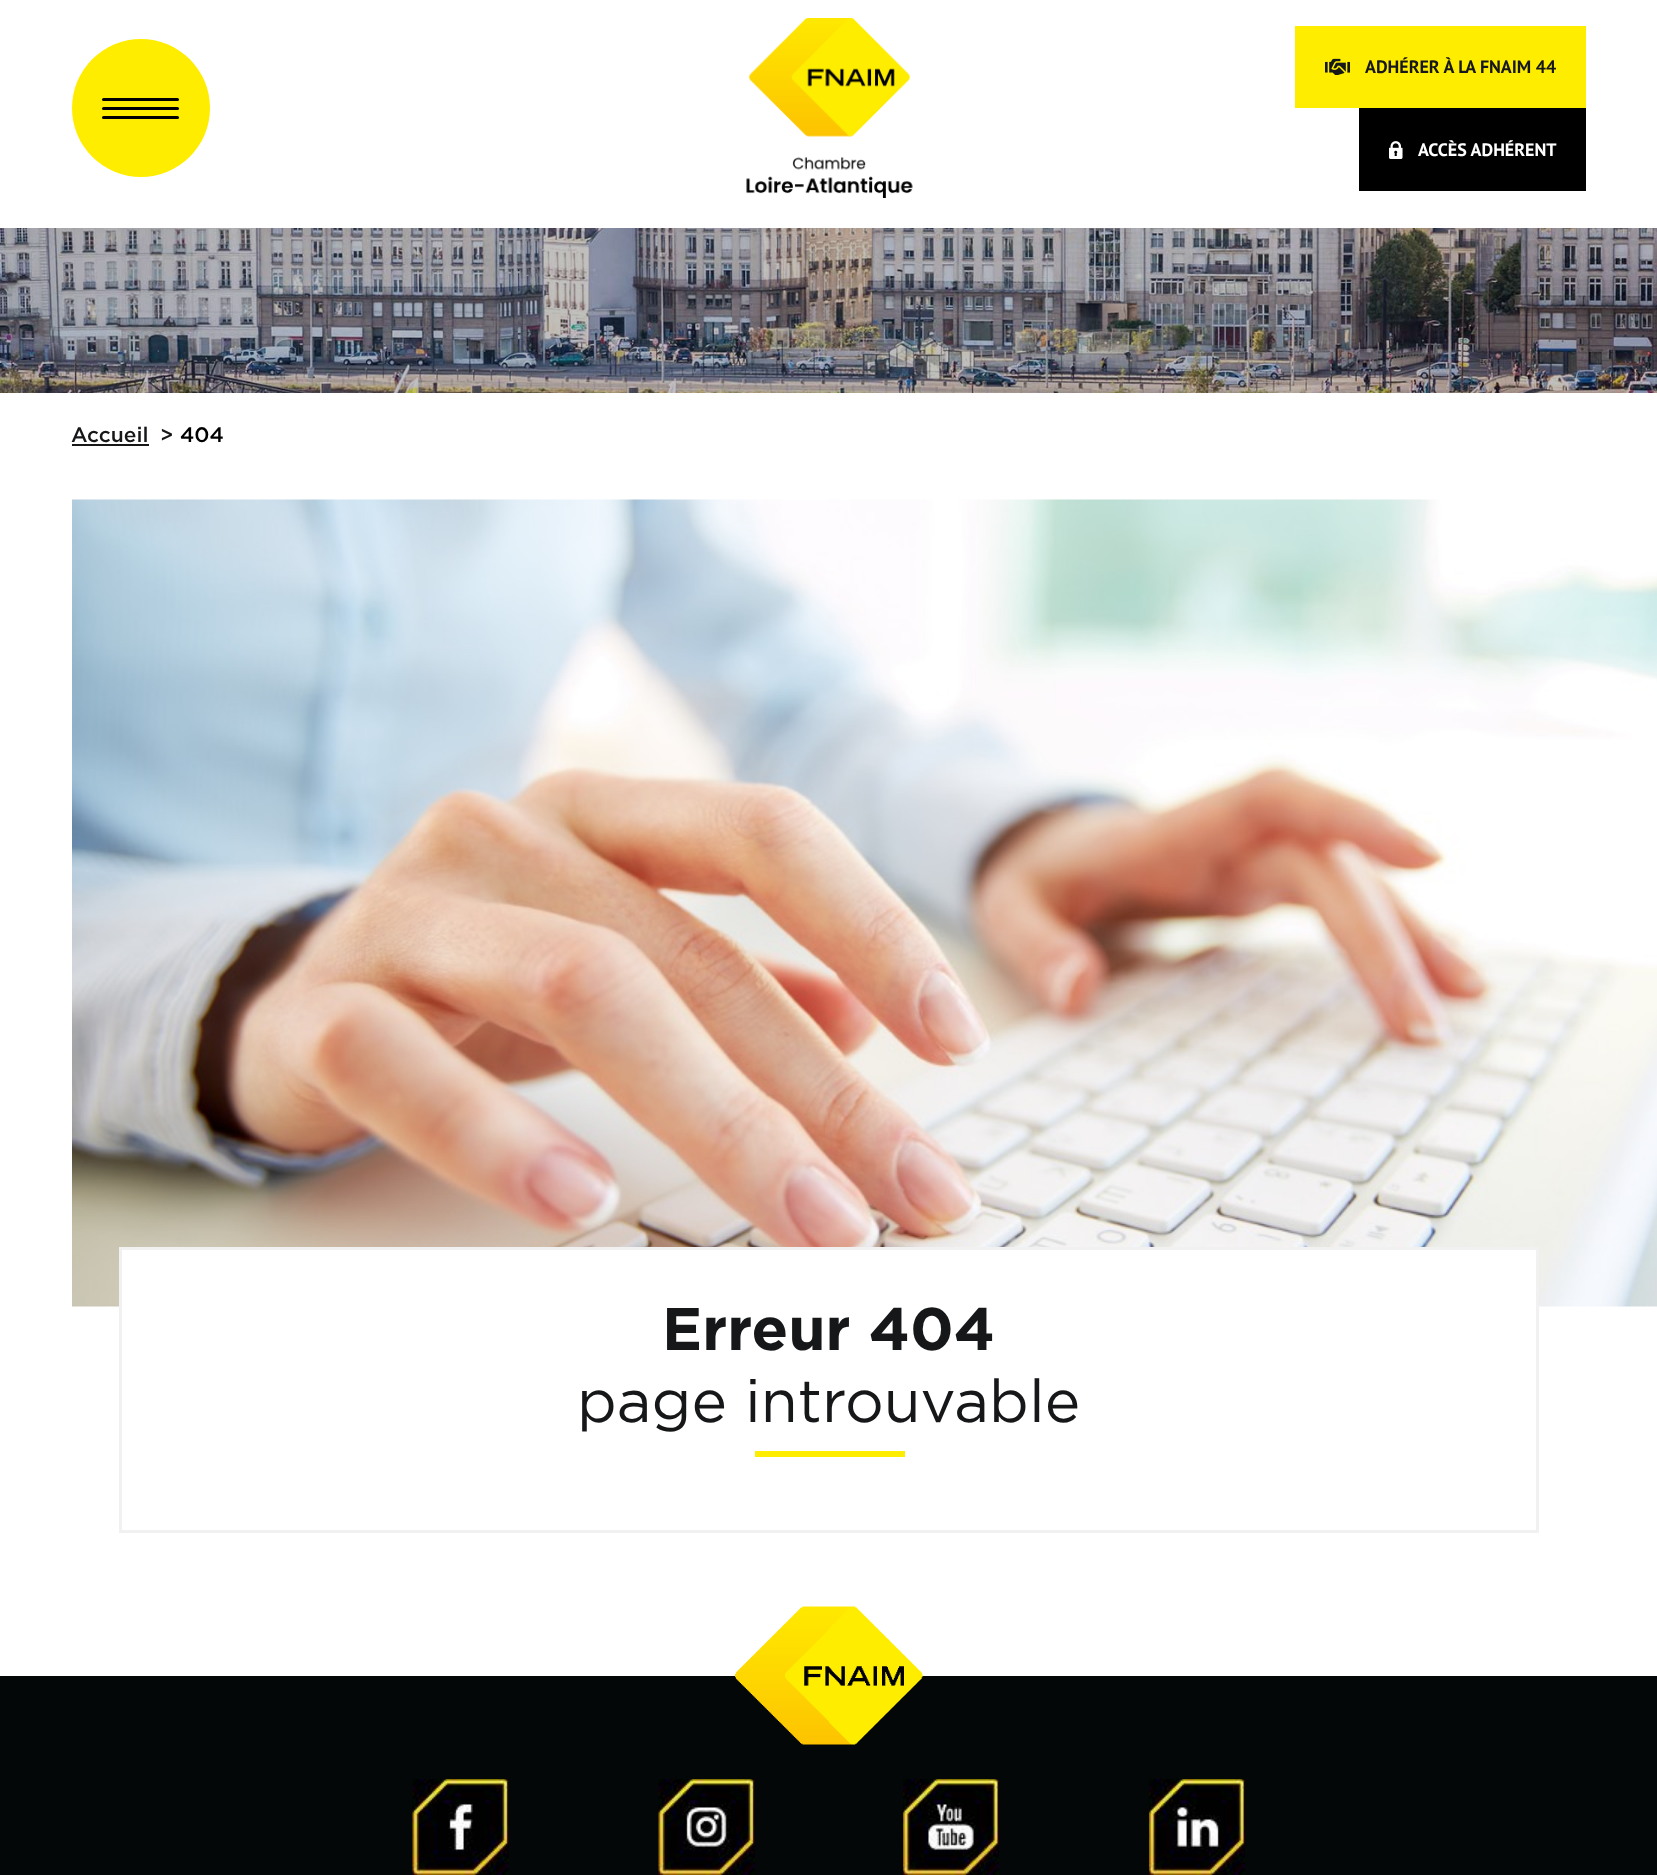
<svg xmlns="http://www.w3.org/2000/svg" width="1657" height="1875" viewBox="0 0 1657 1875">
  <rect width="100%" height="100%" fill="#fff"/>
  <circle cx="141" cy="108" r="69" fill="#ffed00"/>
  <rect x="102" y="107" width="77" height="3" rx="1.5" fill="#000"/>
  <rect x="102" y="98" width="77" height="3" rx="1.5" fill="#000"/>
  <rect x="102" y="116" width="77" height="3" rx="1.5" fill="#000"/>
  <image x="746" y="18" width="167" height="180" href="img/1.png"/>
  <path d="M1295 26h291v82H1295z" fill="#ffed00"/>
  <image x="1325" y="58" width="25" height="17" href="img/2.png"/>
  <path d="M1359 108h227v83H1359z" fill="#000"/>
  <image x="1389" y="141" width="14" height="18" href="img/3.png"/>
  <image x="0" y="228" width="1657" height="165" href="img/4.png"/>
  <path d="M72 444h77v2H72z" fill="#161719"/>
  <image x="72" y="499" width="1585" height="808" href="img/5.png"/>
  <path d="M122 1250h1414v57H122z" fill="#fff"/>
  <path d="M120.5 1248.5h1417v283H120.5z" fill="none" stroke="#f1f1f1" stroke-width="3"/>
  <path d="M755 1451h150v6H755z" fill="#ffed00"/>
  <path d="M0 1676h1657v199H0z" fill="#040707"/>
  <image x="735" y="1606" width="188" height="139" href="img/6.png"/>
  <image x="412" y="1779" width="97" height="96" href="img/7.png"/>
  <image x="658" y="1779" width="97" height="96" href="img/8.png"/>
  <image x="903" y="1779" width="96" height="96" href="img/9.png"/>
  <image x="1149" y="1779" width="96" height="96" href="img/10.png"/>
  <text x="1365" y="73" font-family="PT Sans" font-size="18" font-weight="bold" fill="#161719">ADHÉRER À LA FNAIM 44</text>
  <text x="1418" y="156" font-family="PT Sans" font-size="18" font-weight="bold" fill="#fff">ACCÈS ADHÉRENT</text>
  <g font-family="Gotham" font-size="21" font-weight="500" fill="#161719">
    <text x="71" y="442">Accueil</text>
    <text x="160" y="442">&gt;</text>
  </g>
  <text x="180" y="442" font-family="Gotham" font-size="21" font-weight="500" fill="#000">404</text>
  <text x="662" y="1350" font-family="Gotham" font-size="60" font-weight="bold" fill="#161719">Erreur 404</text>
  <text x="577" y="1422" font-family="Gotham" font-size="60" fill="#161719">page introuvable</text>
</svg>
